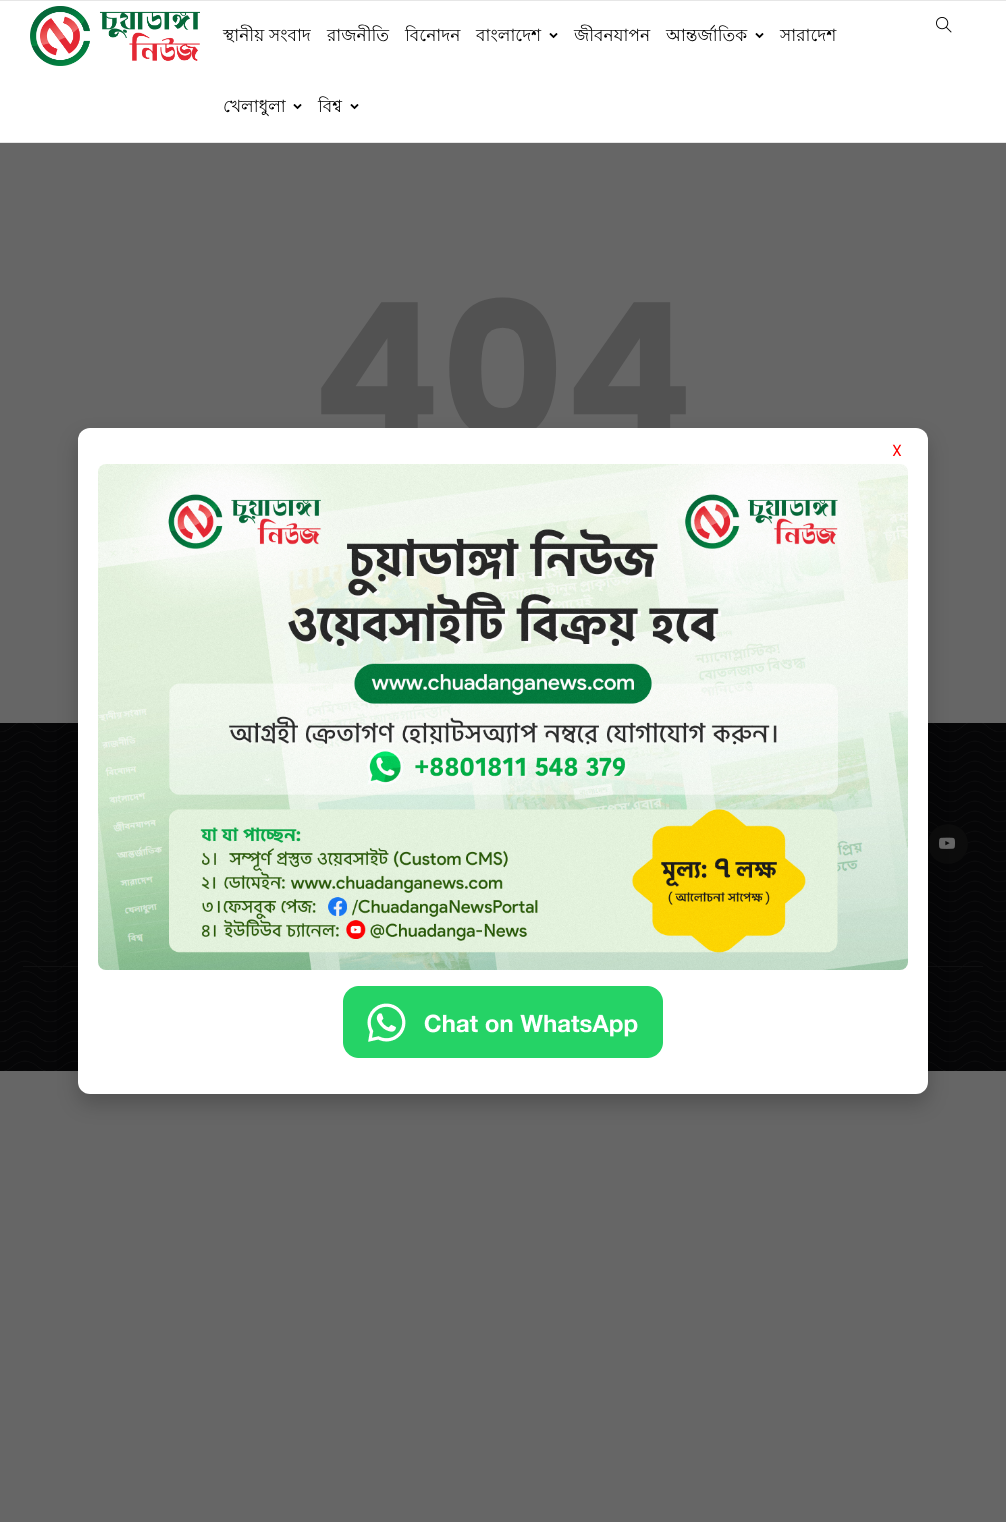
<svg xmlns="http://www.w3.org/2000/svg" width="1006" height="1522" viewBox="0 0 1006 1522">
  <rect width="100%" height="100%" fill="#666"/>
  <path d="M0 1h1006v141H0z" fill="#fff"/>
  <path d="M0 0h1006v1H0z" fill="#e6e6e6"/>
  <path d="M0 142h1006v1H0z" fill="#e6e6e6"/>
  <image x="30" y="6" width="170" height="60" href="img/1.png"/>
  <image x="549" y="33" width="9" height="6" href="img/2.png"/>
  <image x="755" y="33" width="9" height="6" href="img/2.png"/>
  <image x="293" y="104" width="9" height="6" href="img/2.png"/>
  <image x="350" y="104" width="9" height="6" href="img/2.png"/>
  <image x="936" y="17" width="16" height="16" href="img/3.png"/>
  <path d="M0 723h1006v348H0z" fill="#060607"/>
  <image x="0" y="723" width="1006" height="348" href="img/6.png"/>
  <circle cx="948" cy="844" r="20" fill="#0c0c0c"/>
  <image x="939" y="837" width="16" height="12" href="img/7.png"/>
  <path d="M23 966h960v1H23z" fill="#101011"/>
  <rect x="78" y="438" width="850" height="666" rx="12" fill="#00000033" filter="blur(10px)"/>
  <g font-family="Lohit Bengali" font-size="17" fill="#000">
    <text x="223" y="41">স্থানীয় সংবাদ</text>
    <text x="327" y="41">রাজনীতি</text>
    <text x="405" y="41">বিনোদন</text>
    <text x="476" y="41">বাংলাদেশ</text>
    <text x="574" y="41">জীবনযাপন</text>
    <text x="666" y="41">আন্তর্জাতিক</text>
    <text x="780" y="41">সারাদেশ</text>
    <text x="223" y="112">খেলাধুলা</text>
    <text x="318" y="112">বিশ্ব</text>
  </g>
  <text x="312" y="439" font-family="Poppins" font-size="190" font-weight="bold" fill="#525252">404</text>
  <rect x="78" y="428" width="850" height="666" rx="12" fill="#fff"/>
  <text x="892" y="456" font-family="Poppins" font-size="16" fill="#f00">X</text>
  <image x="98" y="464" width="810" height="506" href="img/4.png"/>
  <image x="343" y="986" width="320" height="72" href="img/5.png"/>
</svg>
